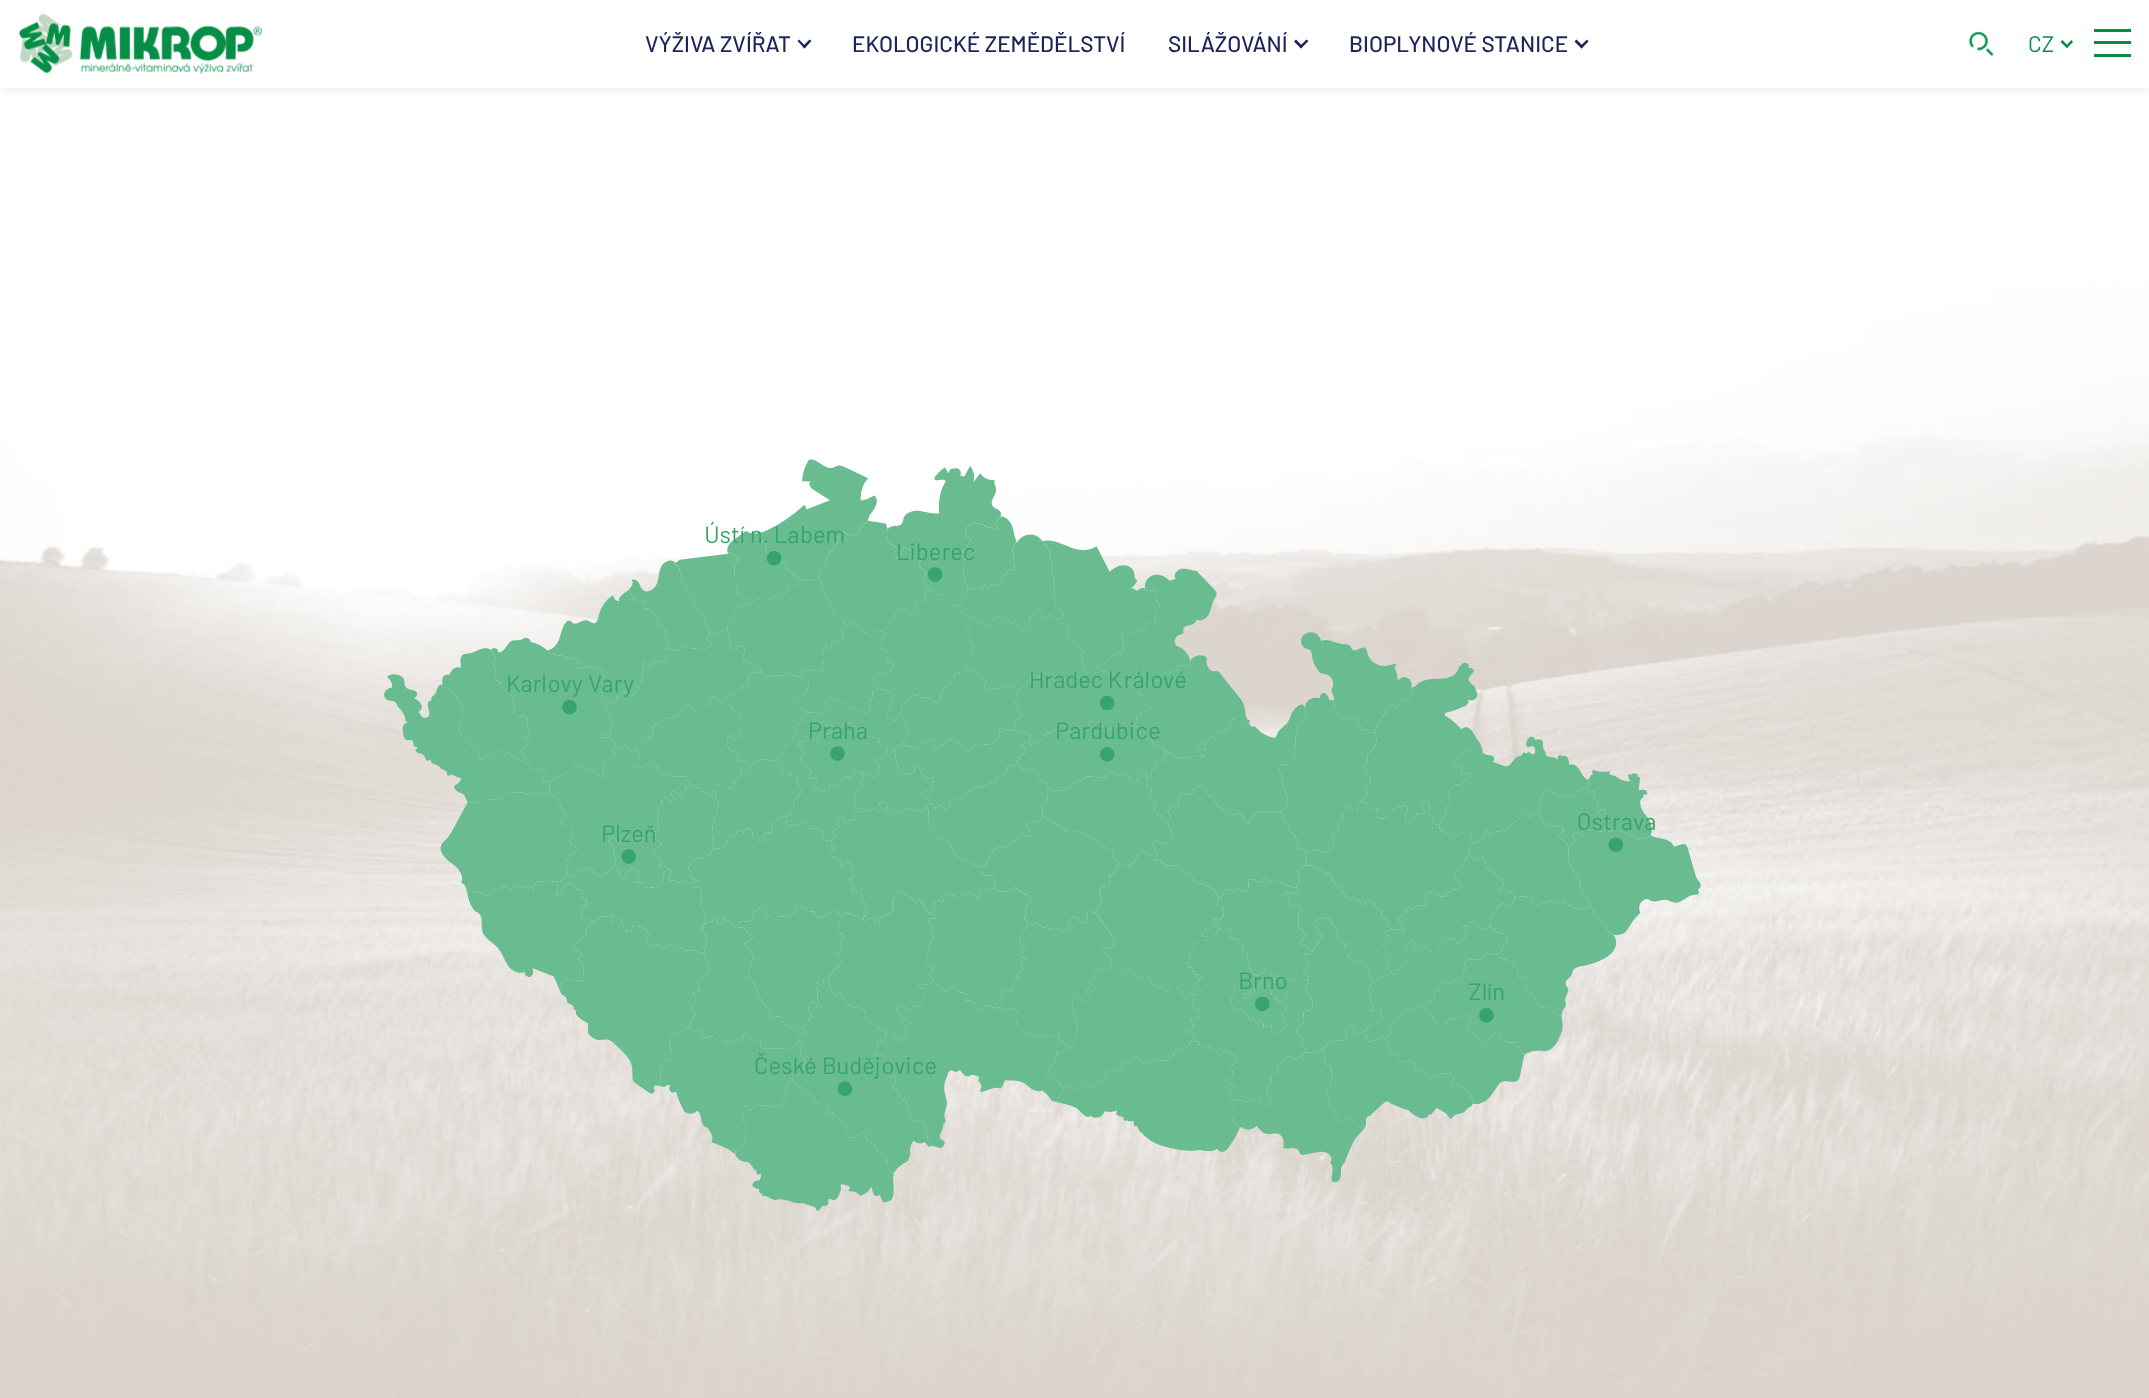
<svg xmlns="http://www.w3.org/2000/svg" width="2149" height="1398" viewBox="0 0 2149 1398">
  <rect width="100%" height="100%" fill="#fff"/>
  <image x="0" y="88" width="2149" height="1310" href="img/3.png"/>
  <path d="M0 0h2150v88H0z" fill="#0000001a" filter="blur(6px)"/>
  <path d="M0 0h2149v88H0z" fill="#fff"/>
  <image x="18" y="13" width="244" height="61" href="img/1.png"/>
  <path d="M802.5 46.5L809.5 39.5L811.5 41L804.5 48.5Z" fill="#1e2558"/>
  <path d="M797.5 41L799 39.5L806 46.5L804.5 48.5Z" fill="#1e2558"/>
  <path d="M1299.5 46.5L1306.5 39.5L1308.5 41L1301 48.5Z" fill="#1e2558"/>
  <path d="M1294 41.5L1296 39.5L1303 46.5L1301 48.5Z" fill="#1e2558"/>
  <path d="M1580 46.5L1587 39.5L1588.5 41.5L1581.5 48.5Z" fill="#1e2558"/>
  <path d="M1574.5 41.5L1576.5 39.5L1583.5 46.5L1581.5 48.5Z" fill="#1e2558"/>
  <image x="1968" y="31" width="26" height="26" href="img/2.png"/>
  <path d="M2065 46.5L2071.5 40L2073 42L2067 48Z" fill="#068e47"/>
  <path d="M2060.5 42L2062.5 40L2068.5 46.5L2067 48Z" fill="#068e47"/>
  <path d="M2094 29h37v3H2094z" fill="#068e47"/>
  <path d="M2094 41h37v3H2094z" fill="#068e47"/>
  <path d="M2094 54h37v3H2094z" fill="#068e47"/>
  <image x="384" y="459" width="1317" height="752" href="img/4.png"/>
  <g font-family="Barlow" font-size="22.5" font-weight="500" fill="#1e2558">
    <text x="645" y="52">VÝŽIVA ZVÍŘAT</text>
    <text x="852" y="52">EKOLOGICKÉ ZEMĚDĚLSTVÍ</text>
    <text x="1168" y="52">SILÁŽOVÁNÍ</text>
    <text x="1349" y="52">BIOPLYNOVÉ STANICE</text>
  </g>
  <text x="2028" y="52" font-family="Barlow" font-size="22.5" fill="#068e47">CZ</text>
</svg>
